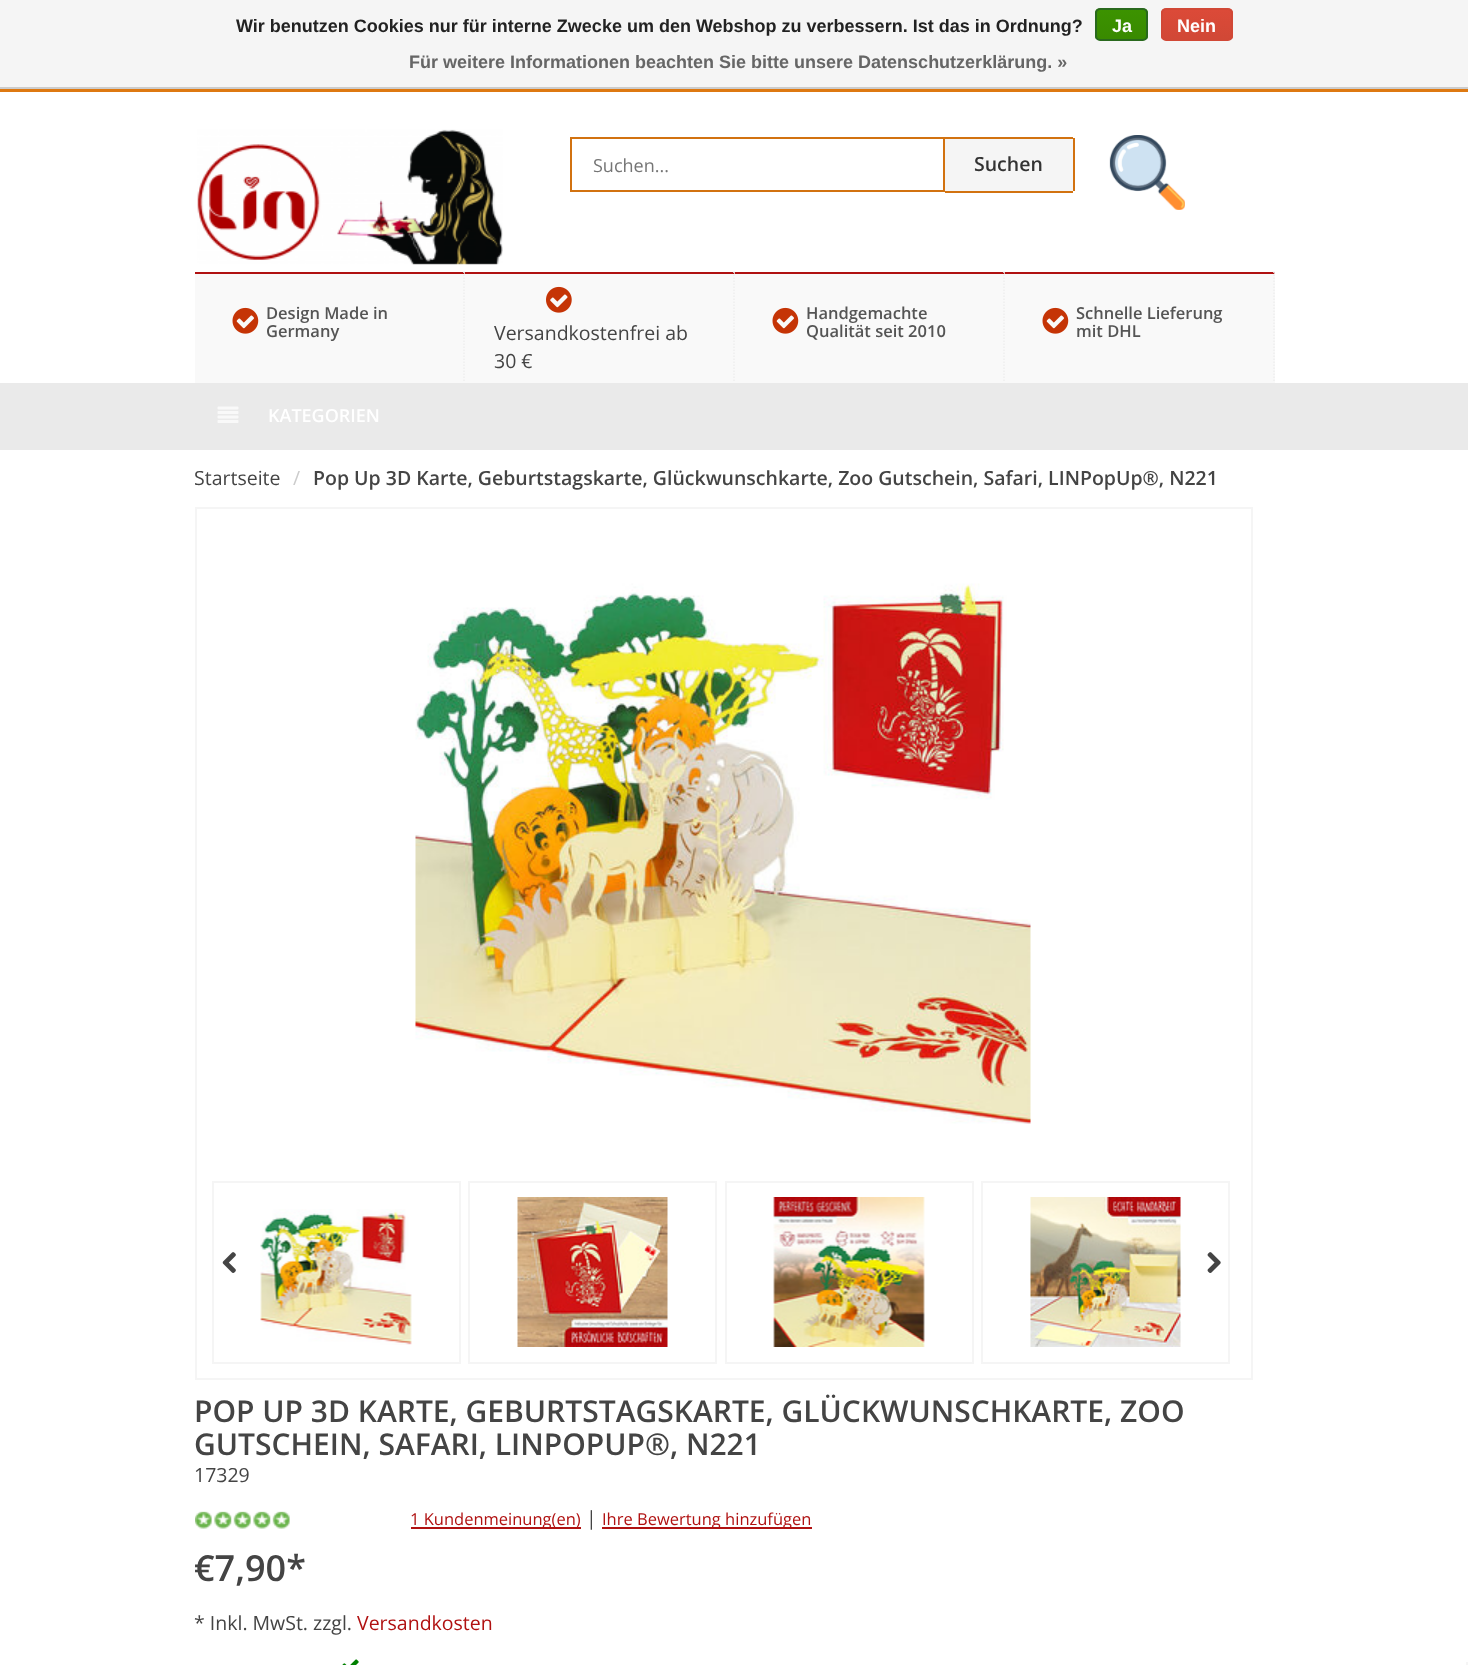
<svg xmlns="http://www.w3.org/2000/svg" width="1468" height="1665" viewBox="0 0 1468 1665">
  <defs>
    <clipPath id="clip1"><rect x="1095" y="8" width="53" height="33" rx="5"/></clipPath>
    <linearGradient id="g1" gradientUnits="userSpaceOnUse" x1="1121" y1="9" x2="1121" y2="39"><stop offset="0" stop-color="#3c9300"/><stop offset="1" stop-color="#398a00"/></linearGradient>
    <clipPath id="clip2"><rect x="1161" y="8" width="72" height="33" rx="5"/></clipPath>
    <linearGradient id="g2" gradientUnits="userSpaceOnUse" x1="1197" y1="9" x2="1197" y2="39"><stop offset="0" stop-color="#dc4a38"/><stop offset="1" stop-color="#d14836"/></linearGradient>
  </defs>
  <rect width="100%" height="100%" fill="#fff"/>
  <path d="M0 0h1468v87H0z" fill="#f5f5f5"/>
  <path d="M0 87h1468v2H0z" fill="#ccc"/>
  <g clip-path="url(#clip1)">
    <path d="M1095 9h53v30H1095z" fill="url(#g1)"/>
  </g>
  <rect x="1096" y="9" width="51" height="31" rx="4" fill="none" stroke="#29691d" stroke-width="2"/>
  <g clip-path="url(#clip2)">
    <path d="M1161 9h72v30H1161z" fill="url(#g2)"/>
  </g>
  <rect x="1162" y="9" width="70" height="31" rx="4" fill="none" stroke="#d14836" stroke-width="2"/>
  <path d="M0 89h1468v3H0z" fill="#de7911"/>
  <image x="197" y="129" width="306" height="136" href="img/1.png"/>
  <path d="M571 138h373v53H571z" fill="none" stroke="#d27210" stroke-width="2"/>
  <path d="M945 137H1071C1072.5 137 1074 138.5 1074 140V189C1074 190.5 1072.5 192 1071 192H945Z" fill="#f5f5f5"/>
  <path d="M945 137h128v2H945z" fill="#d27210"/>
  <path d="M1073 138h2v53H1073z" fill="#d27210"/>
  <path d="M945 191h128v2H945z" fill="#d27210"/>
  <image x="1109" y="135" width="76" height="75" href="img/2.png"/>
  <path d="M195 272h1080v111H195z" fill="#f9f9f9"/>
  <path d="M195 272H465L464 274H195Z" fill="#b01111"/>
  <path d="M464 271.5V382.5" fill="none" stroke="#eee" stroke-width="1.5" stroke-dasharray="1.5 1.5"/>
  <image x="232" y="307" width="27" height="27" href="img/3.png"/>
  <path d="M465 272H735L734 274H465Z" fill="#b01111"/>
  <path d="M734 271.5V382.5" fill="none" stroke="#eee" stroke-width="1.5" stroke-dasharray="1.5 1.5"/>
  <image x="546" y="286" width="26" height="27" href="img/4.png"/>
  <path d="M735 272H1005L1004 274H735Z" fill="#b01111"/>
  <path d="M1004 271.5V382.5" fill="none" stroke="#eee" stroke-width="1.5" stroke-dasharray="1.5 1.5"/>
  <image x="772" y="307" width="27" height="27" href="img/3.png"/>
  <path d="M1005 272H1275L1274 274H1005Z" fill="#b01111"/>
  <path d="M1274 271.5V382.5" fill="none" stroke="#eee" stroke-width="1.5" stroke-dasharray="1.5 1.5"/>
  <image x="1042" y="307" width="27" height="27" href="img/3.png"/>
  <path d="M0 383h1468v67H0z" fill="#eaeaea"/>
  <image x="217" y="406" width="22" height="17" href="img/5.png"/>
  <path d="M196 508h1056v871H196z" fill="none" stroke="#f5f5f5" stroke-width="2"/>
  <image x="415" y="583" width="616" height="541" href="img/6.png"/>
  <path d="M213 1182h247v181H213z" fill="none" stroke="#f5f5f5" stroke-width="2"/>
  <image x="260" y="1209" width="152" height="136" href="img/7.png"/>
  <path d="M469 1182h247v181H469z" fill="none" stroke="#f5f5f5" stroke-width="2"/>
  <image x="517" y="1197" width="151" height="150" href="img/8.png"/>
  <path d="M726 1182h247v181H726z" fill="none" stroke="#f5f5f5" stroke-width="2"/>
  <image x="773" y="1197" width="152" height="150" href="img/9.png"/>
  <path d="M982 1182h247v181H982z" fill="none" stroke="#f5f5f5" stroke-width="2"/>
  <image x="1030" y="1197" width="151" height="150" href="img/10.png"/>
  <image x="222" y="1252" width="14" height="21" href="img/11.png"/>
  <image x="1207" y="1252" width="14" height="21" href="img/12.png"/>
  <image x="195" y="1512" width="95" height="17" href="img/13.png"/>
  <image x="195" y="1511" width="95" height="18" href="img/14.png"/>
  <path d="M411 1527h170v2H411z" fill="#b01111"/>
  <path d="M602 1527h210v2H602z" fill="#b01111"/>
  <image x="342" y="1659" width="17" height="6" href="img/15.png"/>
  <path d="M1466 1662h2v3H1466z" fill="#f5f5f5"/>
  <text x="236" y="32" font-family="Liberation Sans" font-size="18" font-weight="bold" fill="#222">Wir benutzen Cookies nur für interne Zwecke um den Webshop zu verbessern. Ist das in Ordnung?</text>
  <g font-family="Liberation Sans" font-size="18" font-weight="bold" fill="#fff">
    <text x="1112" y="32">Ja</text>
    <text x="1177" y="32">Nein</text>
  </g>
  <text x="409" y="68" font-family="Liberation Sans" font-size="18" font-weight="bold" fill="#666">Für weitere Informationen beachten Sie bitte unsere Datenschutzerklärung. »</text>
  <text x="593" y="172" font-family="Open Sans" font-size="18" fill="#757575">Suchen...</text>
  <text x="974" y="171" font-family="Open Sans" font-size="19.5" font-weight="600" fill="#333">Suchen</text>
  <g font-family="Open Sans" font-size="16.5" font-weight="600" fill="#555">
    <text x="266" y="319">Design Made in</text>
    <text x="266" y="337">Germany</text>
  </g>
  <g font-family="Open Sans" font-size="19.5" fill="#444">
    <text x="494" y="340">Versandkostenfrei ab</text>
    <text x="494" y="368">30 €</text>
  </g>
  <g font-family="Open Sans" font-size="16.5" font-weight="600" fill="#555">
    <text x="806" y="319">Handgemachte</text>
    <text x="806" y="337">Qualität seit 2010</text>
    <text x="1076" y="319">Schnelle Lieferung</text>
    <text x="1076" y="337">mit DHL</text>
  </g>
  <text x="268" y="422" font-family="Open Sans" font-size="18" font-weight="600" fill="#fff">KATEGORIEN</text>
  <text x="194" y="485" font-family="Open Sans" font-size="19.5" fill="#444">Startseite</text>
  <text x="293" y="485" font-family="Open Sans" font-size="19.5" fill="#ccc">/</text>
  <text x="313" y="485" font-family="Open Sans" font-size="19.5" font-weight="600" fill="#444">Pop Up 3D Karte, Geburtstagskarte, Glückwunschkarte, Zoo Gutschein, Safari, LINPopUp®, N221</text>
  <g font-family="Open Sans" font-size="30" font-weight="600" fill="#444">
    <text x="194" y="1422">POP UP 3D KARTE, GEBURTSTAGSKARTE, GLÜCKWUNSCHKARTE, ZOO</text>
    <text x="194" y="1455">GUTSCHEIN, SAFARI, LINPOPUP®, N221</text>
  </g>
  <text x="194" y="1482" font-family="Open Sans" font-size="19.5" fill="#444">17329</text>
  <text x="410" y="1525" font-family="Open Sans" font-size="16.5" fill="#b01111">1 Kundenmeinung(en)</text>
  <text x="586" y="1525" font-family="Open Sans" font-size="19.5" fill="#444">|</text>
  <text x="602" y="1525" font-family="Open Sans" font-size="16.5" fill="#b01111">Ihre Bewertung hinzufügen</text>
  <text x="194" y="1581" font-family="Open Sans" font-size="36" font-weight="600" fill="#444">€7,90*</text>
  <text x="194" y="1630" font-family="Open Sans" font-size="19.5" fill="#444">* Inkl. MwSt. zzgl.</text>
  <text x="357" y="1630" font-family="Open Sans" font-size="19.5" fill="#b01111">Versandkosten</text>
</svg>
